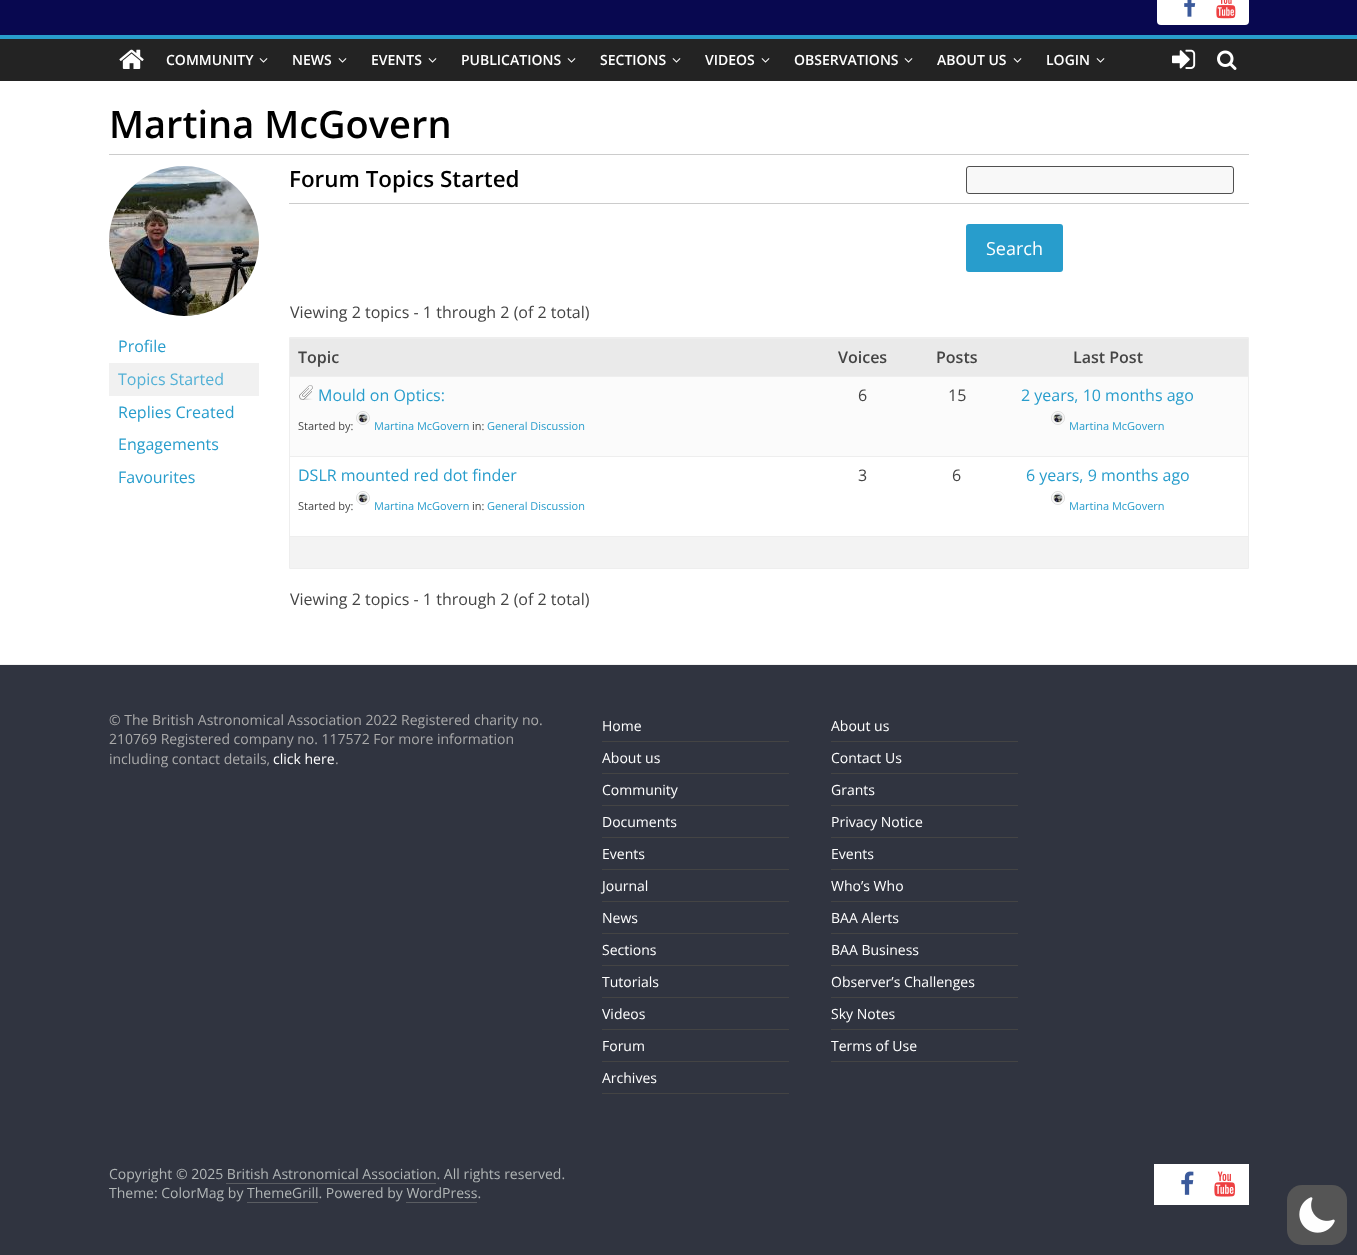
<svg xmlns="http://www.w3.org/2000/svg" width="1357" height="1255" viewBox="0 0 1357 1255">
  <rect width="100%" height="100%" fill="#080850"/>
  <rect x="1157" y="-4" width="92" height="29" rx="4" fill="#fff"/>
  <image x="1184" y="0" width="12" height="17" href="img/1.png"/>
  <image x="1216" y="0" width="20" height="19" href="img/2.png"/>
  <path d="M0 39h1357v42H0z" fill="#232323"/>
  <path d="M0 35h1357v4H0z" fill="#289dcc"/>
  <image x="119" y="49" width="25" height="20" href="img/3.png"/>
  <image x="259" y="58" width="9" height="5" href="img/4.png"/>
  <image x="338" y="58" width="9" height="5" href="img/4.png"/>
  <image x="428" y="58" width="9" height="5" href="img/4.png"/>
  <image x="567" y="58" width="9" height="5" href="img/4.png"/>
  <image x="672" y="58" width="9" height="5" href="img/4.png"/>
  <image x="761" y="58" width="9" height="5" href="img/4.png"/>
  <image x="904" y="58" width="9" height="5" href="img/4.png"/>
  <image x="1013" y="58" width="9" height="5" href="img/4.png"/>
  <image x="1096" y="58" width="9" height="5" href="img/4.png"/>
  <image x="1172" y="49" width="24" height="20" href="img/5.png"/>
  <image x="1217" y="50" width="20" height="20" href="img/6.png"/>
  <path d="M0 81h1357v583H0z" fill="#fff"/>
  <path d="M109 154h1140v1H109z" fill="#ccc"/>
  <image x="109" y="166" width="150" height="150" href="img/7.png"/>
  <path d="M109 363h150v33H109z" fill="#f1f1f1"/>
  <path d="M289 203h960v1H289z" fill="#ccc"/>
  <rect x="966.5" y="166.5" width="267" height="27" rx="2.5" fill="#f8f8f8" stroke="#505050"/>
  <rect x="966" y="224" width="97" height="48" rx="3" fill="#289dcc"/>
  <path d="M289.5 337.5h959v231H289.5z" fill="none" stroke="#eee"/>
  <path d="M290 339h958v37H290z" fill="#eaeaea"/>
  <path d="M290 338h958v1H290z" fill="#eee"/>
  <path d="M290 377h958v79H290z" fill="#fbfbfb"/>
  <path d="M290 376h958v1H290z" fill="#eee"/>
  <image x="299" y="385" width="14" height="15" href="img/8.png"/>
  <circle cx="363" cy="418" r="6.5" fill="none" stroke="#ddd"/>
  <circle cx="363" cy="418" r="4.5" fill="none" stroke="#ddd"/>
  <image x="359" y="414" width="8" height="8" href="img/9.png"/>
  <circle cx="1058" cy="418" r="6.5" fill="none" stroke="#ddd"/>
  <circle cx="1058" cy="418" r="4.5" fill="none" stroke="#ddd"/>
  <image x="1054" y="414" width="8" height="8" href="img/9.png"/>
  <path d="M290 456h958v1H290z" fill="#eee"/>
  <circle cx="363" cy="498" r="6.5" fill="none" stroke="#ddd"/>
  <circle cx="363" cy="498" r="4.5" fill="none" stroke="#ddd"/>
  <image x="359" y="494" width="8" height="8" href="img/10.png"/>
  <circle cx="1058" cy="498" r="6.5" fill="none" stroke="#ddd"/>
  <circle cx="1058" cy="498" r="4.5" fill="none" stroke="#ddd"/>
  <image x="1054" y="494" width="8" height="8" href="img/10.png"/>
  <path d="M290 537h958v31H290z" fill="#f3f3f3"/>
  <path d="M290 536h958v1H290z" fill="#eee"/>
  <path d="M0 665h1357v590H0z" fill="#303440"/>
  <path d="M0 664h1357v1H0z" fill="#f2f2f2"/>
  <path d="M602 741h187v1H602z" fill="#444"/>
  <path d="M602 773h187v1H602z" fill="#444"/>
  <path d="M602 805h187v1H602z" fill="#444"/>
  <path d="M602 837h187v1H602z" fill="#444"/>
  <path d="M602 869h187v1H602z" fill="#444"/>
  <path d="M602 901h187v1H602z" fill="#444"/>
  <path d="M602 933h187v1H602z" fill="#444"/>
  <path d="M602 965h187v1H602z" fill="#444"/>
  <path d="M602 997h187v1H602z" fill="#444"/>
  <path d="M602 1029h187v1H602z" fill="#444"/>
  <path d="M602 1061h187v1H602z" fill="#444"/>
  <path d="M602 1093h187v1H602z" fill="#444"/>
  <path d="M831 741h187v1H831z" fill="#444"/>
  <path d="M831 773h187v1H831z" fill="#444"/>
  <path d="M831 805h187v1H831z" fill="#444"/>
  <path d="M831 837h187v1H831z" fill="#444"/>
  <path d="M831 869h187v1H831z" fill="#444"/>
  <path d="M831 901h187v1H831z" fill="#444"/>
  <path d="M831 933h187v1H831z" fill="#444"/>
  <path d="M831 965h187v1H831z" fill="#444"/>
  <path d="M831 997h187v1H831z" fill="#444"/>
  <path d="M831 1029h187v1H831z" fill="#444"/>
  <path d="M831 1061h187v1H831z" fill="#444"/>
  <path d="M226 1183h210v1H226z" fill="#5a5d62"/>
  <path d="M247 1202h71v1H247z" fill="#5a5d62"/>
  <path d="M406 1202h71v1H406z" fill="#5a5d62"/>
  <path d="M1154 1164h95v41H1154z" fill="#fff"/>
  <image x="1181" y="1171" width="13" height="24" href="img/11.png"/>
  <image x="1214" y="1171" width="22" height="26" href="img/12.png"/>
  <rect x="1287" y="1185" width="60" height="60" rx="15" fill="#555"/>
  <image x="1299" y="1197" width="36" height="36" href="img/13.png"/>
  <g font-family="Open Sans" font-size="14" font-weight="600" fill="#fff">
    <text x="166" y="65">COMMUNITY</text>
    <text x="292" y="65">NEWS</text>
    <text x="371" y="65">EVENTS</text>
    <text x="461" y="65">PUBLICATIONS</text>
    <text x="600" y="65">SECTIONS</text>
    <text x="705" y="65">VIDEOS</text>
    <text x="794" y="65">OBSERVATIONS</text>
    <text x="937" y="65">ABOUT US</text>
    <text x="1046" y="65">LOGIN</text>
  </g>
  <text x="109" y="138" font-family="Open Sans" font-size="38" font-weight="600" fill="#000">Martina McGovern</text>
  <text x="118" y="352" font-family="Open Sans" font-size="16" fill="#289dcc">Profile</text>
  <text x="118" y="385" font-family="Open Sans" font-size="16" fill="#53b1d6">Topics Started</text>
  <g font-family="Open Sans" font-size="16" fill="#289dcc">
    <text x="118" y="418">Replies Created</text>
    <text x="118" y="450">Engagements</text>
    <text x="118" y="483">Favourites</text>
  </g>
  <text x="289" y="187" font-family="Open Sans" font-size="22.4" font-weight="600" fill="#000">Forum Topics Started</text>
  <text x="986" y="255" font-family="Open Sans" font-size="18" fill="#fff">Search</text>
  <text x="290" y="318" font-family="Open Sans" font-size="16" fill="#444">Viewing 2 topics - 1 through 2 (of 2 total)</text>
  <g font-family="Open Sans" font-size="16" font-weight="600" fill="#444">
    <text x="298" y="363">Topic</text>
    <text x="838" y="363">Voices</text>
    <text x="936" y="363">Posts</text>
    <text x="1073" y="363">Last Post</text>
  </g>
  <text x="318" y="401" font-family="Open Sans" font-size="16" fill="#289dcc">Mould on Optics:</text>
  <text x="298" y="430" font-family="Open Sans" font-size="11" fill="#444">Started by:</text>
  <text x="374" y="430" font-family="Open Sans" font-size="11" fill="#289dcc">Martina McGovern</text>
  <text x="472" y="430" font-family="Open Sans" font-size="11" fill="#444">in:</text>
  <text x="487" y="430" font-family="Open Sans" font-size="11" fill="#289dcc">General Discussion</text>
  <g font-family="Open Sans" font-size="16" fill="#444">
    <text x="858" y="401">6</text>
    <text x="948" y="401">15</text>
  </g>
  <text x="1021" y="401" font-family="Open Sans" font-size="16" fill="#289dcc">2 years, 10 months ago</text>
  <text x="1069" y="430" font-family="Open Sans" font-size="11" fill="#289dcc">Martina McGovern</text>
  <text x="298" y="481" font-family="Open Sans" font-size="16" fill="#289dcc">DSLR mounted red dot finder</text>
  <text x="298" y="510" font-family="Open Sans" font-size="11" fill="#444">Started by:</text>
  <text x="374" y="510" font-family="Open Sans" font-size="11" fill="#289dcc">Martina McGovern</text>
  <text x="472" y="510" font-family="Open Sans" font-size="11" fill="#444">in:</text>
  <text x="487" y="510" font-family="Open Sans" font-size="11" fill="#289dcc">General Discussion</text>
  <g font-family="Open Sans" font-size="16" fill="#444">
    <text x="858" y="481">3</text>
    <text x="952" y="481">6</text>
  </g>
  <text x="1026" y="481" font-family="Open Sans" font-size="16" fill="#289dcc">6 years, 9 months ago</text>
  <text x="1069" y="510" font-family="Open Sans" font-size="11" fill="#289dcc">Martina McGovern</text>
  <text x="290" y="605" font-family="Open Sans" font-size="16" fill="#444">Viewing 2 topics - 1 through 2 (of 2 total)</text>
  <g font-family="Open Sans" font-size="14" fill="#aaa">
    <text x="109" y="725">© The British Astronomical Association 2022 Registered charity no.</text>
    <text x="109" y="744">210769 Registered company no. 117572 For more information</text>
    <text x="109" y="764">including contact details,</text>
  </g>
  <text x="273" y="764" font-family="Open Sans" font-size="14" fill="#fff">click here</text>
  <text x="335" y="764" font-family="Open Sans" font-size="14" fill="#aaa">.</text>
  <g font-family="Open Sans" font-size="14" fill="#fff">
    <text x="602" y="731">Home</text>
    <text x="602" y="763">About us</text>
    <text x="602" y="795">Community</text>
    <text x="602" y="827">Documents</text>
    <text x="602" y="859">Events</text>
    <text x="602" y="891">Journal</text>
    <text x="602" y="923">News</text>
    <text x="602" y="955">Sections</text>
    <text x="602" y="987">Tutorials</text>
    <text x="602" y="1019">Videos</text>
    <text x="602" y="1051">Forum</text>
    <text x="602" y="1083">Archives</text>
    <text x="831" y="731">About us</text>
    <text x="831" y="763">Contact Us</text>
    <text x="831" y="795">Grants</text>
    <text x="831" y="827">Privacy Notice</text>
    <text x="831" y="859">Events</text>
    <text x="831" y="891">Who’s Who</text>
    <text x="831" y="923">BAA Alerts</text>
    <text x="831" y="955">BAA Business</text>
    <text x="831" y="987">Observer’s Challenges</text>
    <text x="831" y="1019">Sky Notes</text>
    <text x="831" y="1051">Terms of Use</text>
  </g>
  <g font-family="Open Sans" font-size="14" fill="#b1b6b6">
    <text x="109" y="1179">Copyright © 2025 British Astronomical Association. All rights reserved.</text>
    <text x="109" y="1198">Theme: ColorMag by ThemeGrill. Powered by WordPress.</text>
  </g>
</svg>
